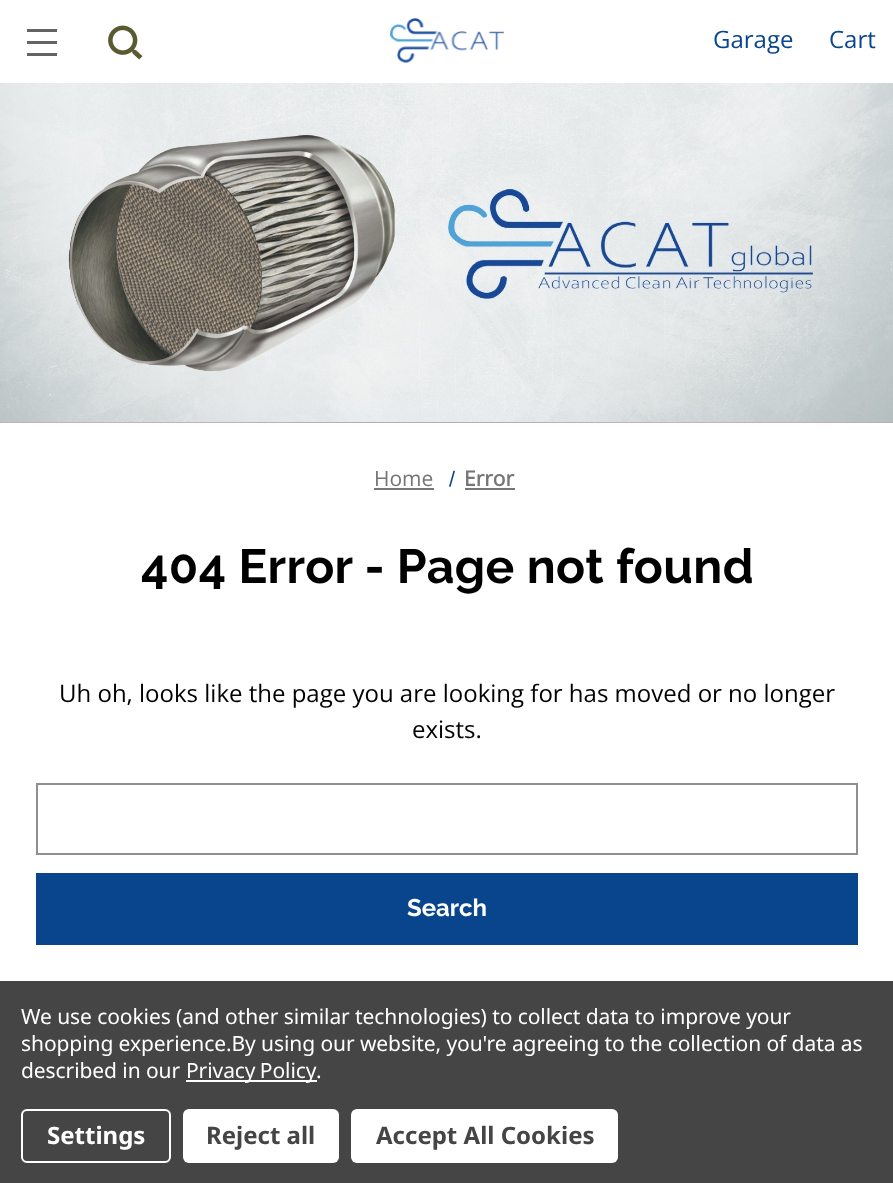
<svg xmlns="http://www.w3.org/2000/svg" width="893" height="1183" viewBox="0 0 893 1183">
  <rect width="100%" height="100%" fill="#fff"/>
  <path d="M27 41h30v3H27z" fill="#636466"/>
  <path d="M27 29h30v3H27z" fill="#636466"/>
  <path d="M27 53h30v3H27z" fill="#636466"/>
  <image x="108" y="25" width="35" height="35" href="img/1.png"/>
  <image x="390" y="18" width="114" height="45" href="img/2.png"/>
  <image x="0" y="83" width="893" height="340" href="img/3.png"/>
  <path d="M374 488h60v2H374z" fill="#757575"/>
  <path d="M453.5 470.5L455 471L450.5 487L449 486.5Z" fill="#08458c"/>
  <path d="M465 488h50v2H465z" fill="#757575"/>
  <path d="M37 784h820v70H37z" fill="none" stroke="#8f8f8f" stroke-width="2"/>
  <path d="M36 873h822v72H36z" fill="#08458c"/>
  <path d="M0 981h893v202H0z" fill="#454545"/>
  <path d="M186 1080h131v2H186z" fill="#fff"/>
  <rect x="22" y="1110" width="148" height="52" rx="5" fill="none" stroke="#fff" stroke-width="2"/>
  <rect x="183" y="1109" width="156" height="54" rx="6" fill="#fff"/>
  <rect x="351" y="1109" width="267" height="54" rx="6" fill="#fff"/>
  <g font-family="Open Sans" font-size="24" fill="#08458c">
    <text x="713" y="48">Garage</text>
    <text x="829" y="48">Cart</text>
  </g>
  <text x="374" y="486" font-family="Open Sans" font-size="21" fill="#757575">Home</text>
  <text x="464" y="486" font-family="Open Sans" font-size="21" font-weight="bold" fill="#757575">Error</text>
  <text x="141" y="583" font-family="Raleway" font-size="48" font-weight="bold" letter-spacing="0.4" fill="#000">404 Error - Page not found</text>
  <g font-family="Open Sans" font-size="24" fill="#000">
    <text x="59" y="702">Uh oh, looks like the page you are looking for has moved or no longer</text>
    <text x="412" y="738">exists.</text>
  </g>
  <text x="407" y="916" font-family="Raleway" font-size="24" font-weight="bold" fill="#fff">Search</text>
  <g font-family="Noto Sans" font-size="21" letter-spacing="-0.08" fill="#fff">
    <text x="21" y="1024">We use cookies (and other similar technologies) to collect data to improve your</text>
    <text x="21" y="1051">shopping experience.By using our website, you're agreeing to the collection of data as</text>
    <text x="21" y="1078">described in our</text>
    <text x="186" y="1078" word-spacing="-1">Privacy Policy</text>
    <text x="316" y="1078">.</text>
  </g>
  <text x="47" y="1144" font-family="Noto Sans" font-size="24" font-weight="bold" fill="#fff">Settings</text>
  <g font-family="Noto Sans" font-size="24" font-weight="bold" fill="#454545">
    <text x="206" y="1144">Reject all</text>
    <text x="376" y="1144">Accept All Cookies</text>
  </g>
</svg>
